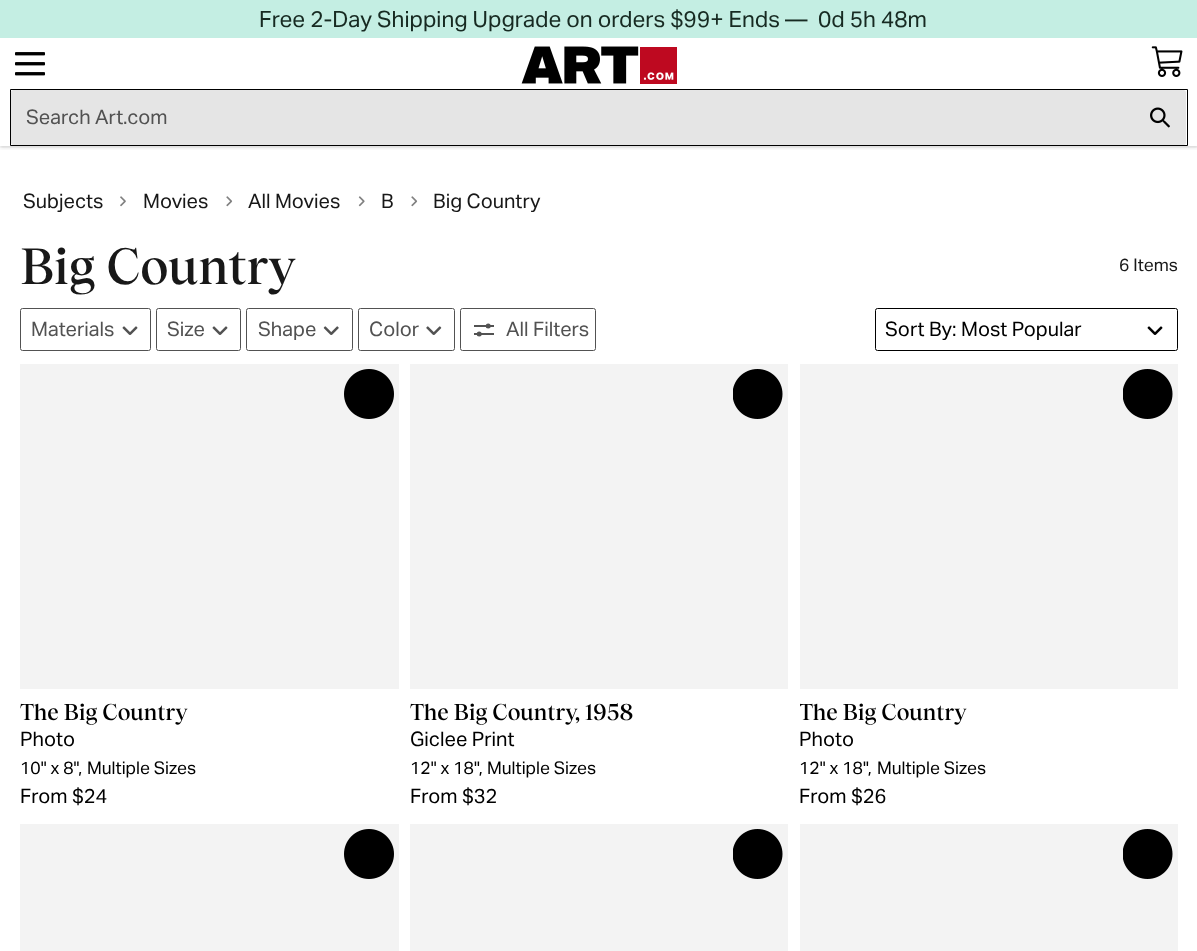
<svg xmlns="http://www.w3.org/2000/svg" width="1197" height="951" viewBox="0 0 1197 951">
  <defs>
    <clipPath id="clip1"><path d="M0 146h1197v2H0z"/></clipPath>
    <clipPath id="clip2"><path d="M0 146h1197v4H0z"/></clipPath>
    <clipPath id="clip3"><path d="M800 699h378v26H800z"/></clipPath>
  </defs>
  <rect width="100%" height="100%" fill="#fff"/>
  <g clip-path="url(#clip1)">
    <path d="M0 39h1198v109H0z" fill="#0000000f" filter="blur(1px)"/>
  </g>
  <g clip-path="url(#clip2)">
    <path d="M0 39h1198v109H0z" fill="#0000001a" filter="blur(2px)"/>
  </g>
  <path d="M0 0h1197v38H0z" fill="#c4eee3"/>
  <image x="15" y="52" width="30" height="24" href="img/1.png"/>
  <image x="521" y="46" width="156" height="38" href="img/2.png"/>
  <image x="1151" y="46" width="32" height="31" href="img/3.png"/>
  <path d="M10.5 89.5h1177v56H10.5z" fill="none" stroke="#000"/>
  <path d="M13.5 90H1134V145H13.5C12 145 11 144 11 142.5V92.5C11 91 12 90 13.5 90Z" fill="#e5e5e5"/>
  <path d="M1134 90H1183.5C1185 90 1186 91 1186 92.5V142.5C1186 144 1185 145 1183.5 145H1134Z" fill="#e5e5e5"/>
  <image x="1150" y="107" width="20" height="21" href="img/4.png"/>
  <image x="120" y="196" width="6" height="11" href="img/5.png"/>
  <image x="226" y="196" width="7" height="11" href="img/6.png"/>
  <image x="358" y="196" width="7" height="11" href="img/7.png"/>
  <image x="411" y="196" width="7" height="11" href="img/6.png"/>
  <rect x="20.5" y="308.5" width="130" height="42" rx="2" fill="none" stroke="#525252"/>
  <image x="122" y="326" width="16" height="9" href="img/8.png"/>
  <rect x="156.5" y="308.5" width="84" height="42" rx="2" fill="none" stroke="#525252"/>
  <image x="212" y="326" width="16" height="9" href="img/8.png"/>
  <rect x="246.5" y="308.5" width="106" height="42" rx="2" fill="none" stroke="#525252"/>
  <image x="323" y="326" width="16" height="9" href="img/9.png"/>
  <rect x="358.5" y="308.5" width="96" height="42" rx="2" fill="none" stroke="#525252"/>
  <image x="426" y="326" width="16" height="9" href="img/10.png"/>
  <rect x="460.5" y="308.5" width="135" height="42" rx="2" fill="none" stroke="#525252"/>
  <path d="M474 333h20v2H474z" fill="#525252"/>
  <path d="M474 325h20v2H474z" fill="#525252"/>
  <circle cx="488.2" cy="326" r="2.5" fill="#525252"/>
  <circle cx="479.2" cy="334" r="2.5" fill="#525252"/>
  <rect x="875.5" y="308.5" width="302" height="42" rx="2" fill="none" stroke="#000"/>
  <image x="1147" y="326" width="16" height="9" href="img/11.png"/>
  <path d="M20 364h379v325H20z" fill="#f3f3f3"/>
  <image x="344" y="369" width="50" height="50" href="img/12.png"/>
  <path d="M410 364h378v325H410z" fill="#f3f3f3"/>
  <image x="733" y="369" width="50" height="50" href="img/13.png"/>
  <path d="M800 364h378v325H800z" fill="#f3f3f3"/>
  <image x="1123" y="369" width="50" height="50" href="img/13.png"/>
  <path d="M20 824h379v127H20z" fill="#f3f3f3"/>
  <image x="344" y="829" width="50" height="50" href="img/12.png"/>
  <path d="M410 824h378v127H410z" fill="#f3f3f3"/>
  <image x="733" y="829" width="50" height="50" href="img/13.png"/>
  <path d="M800 824h378v127H800z" fill="#f3f3f3"/>
  <image x="1123" y="829" width="50" height="50" href="img/13.png"/>
  <g font-family="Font" font-size="22.5" fill="#172a22">
    <text x="259" y="27">Free 2-Day Shipping Upgrade on orders $99+ Ends —</text>
    <text x="818" y="27">0d 5h 48m</text>
  </g>
  <text x="26" y="124" font-family="Font" font-size="20" fill="#525252">Search Art.com</text>
  <g font-family="Font" font-size="20" fill="#181818">
    <text x="23" y="208">Subjects</text>
    <text x="143" y="208">Movies</text>
    <text x="248" y="208">All Movies</text>
    <text x="381" y="208">B</text>
    <text x="433" y="208">Big Country</text>
  </g>
  <text x="20" y="284" font-family="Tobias" font-size="50" font-weight="500" fill="#181818">Big Country</text>
  <text x="1119" y="271" font-family="Font" font-size="17.5" fill="#181818">6 Items</text>
  <g font-family="Font" font-size="20" fill="#525252">
    <text x="31" y="336">Materials</text>
    <text x="167" y="336">Size</text>
    <text x="258" y="336">Shape</text>
    <text x="369" y="336">Color</text>
    <text x="506" y="336">All Filters</text>
  </g>
  <text x="885" y="336" font-family="Font" font-size="20" fill="#000">Sort By: Most Popular</text>
  <text x="20" y="720" font-family="Tobias" font-size="22.5" font-weight="500" fill="#000">The Big Country</text>
  <text x="20" y="746" font-family="Font" font-size="20" fill="#000">Photo</text>
  <g font-family="Font" font-size="17.5" fill="#000">
    <text x="20" y="774">10" x 8",</text>
    <text x="87" y="774">Multiple Sizes</text>
  </g>
  <text x="20" y="803" font-family="Font" font-size="20" fill="#000">From $24</text>
  <text x="410" y="720" font-family="Tobias" font-size="22.5" font-weight="500" fill="#000">The Big Country, 1958</text>
  <text x="410" y="746" font-family="Font" font-size="20" fill="#000">Giclee Print</text>
  <g font-family="Font" font-size="17.5" fill="#000">
    <text x="410" y="774">12" x 18",</text>
    <text x="487" y="774">Multiple Sizes</text>
  </g>
  <text x="410" y="803" font-family="Font" font-size="20" fill="#000">From $32</text>
  <g clip-path="url(#clip3)">
    <text x="799" y="720" font-family="Tobias" font-size="22.5" font-weight="500" fill="#000">The Big Country</text>
  </g>
  <text x="799" y="746" font-family="Font" font-size="20" fill="#000">Photo</text>
  <g font-family="Font" font-size="17.5" fill="#000">
    <text x="799" y="774">12" x 18",</text>
    <text x="877" y="774">Multiple Sizes</text>
  </g>
  <text x="799" y="803" font-family="Font" font-size="20" fill="#000">From $26</text>
</svg>
